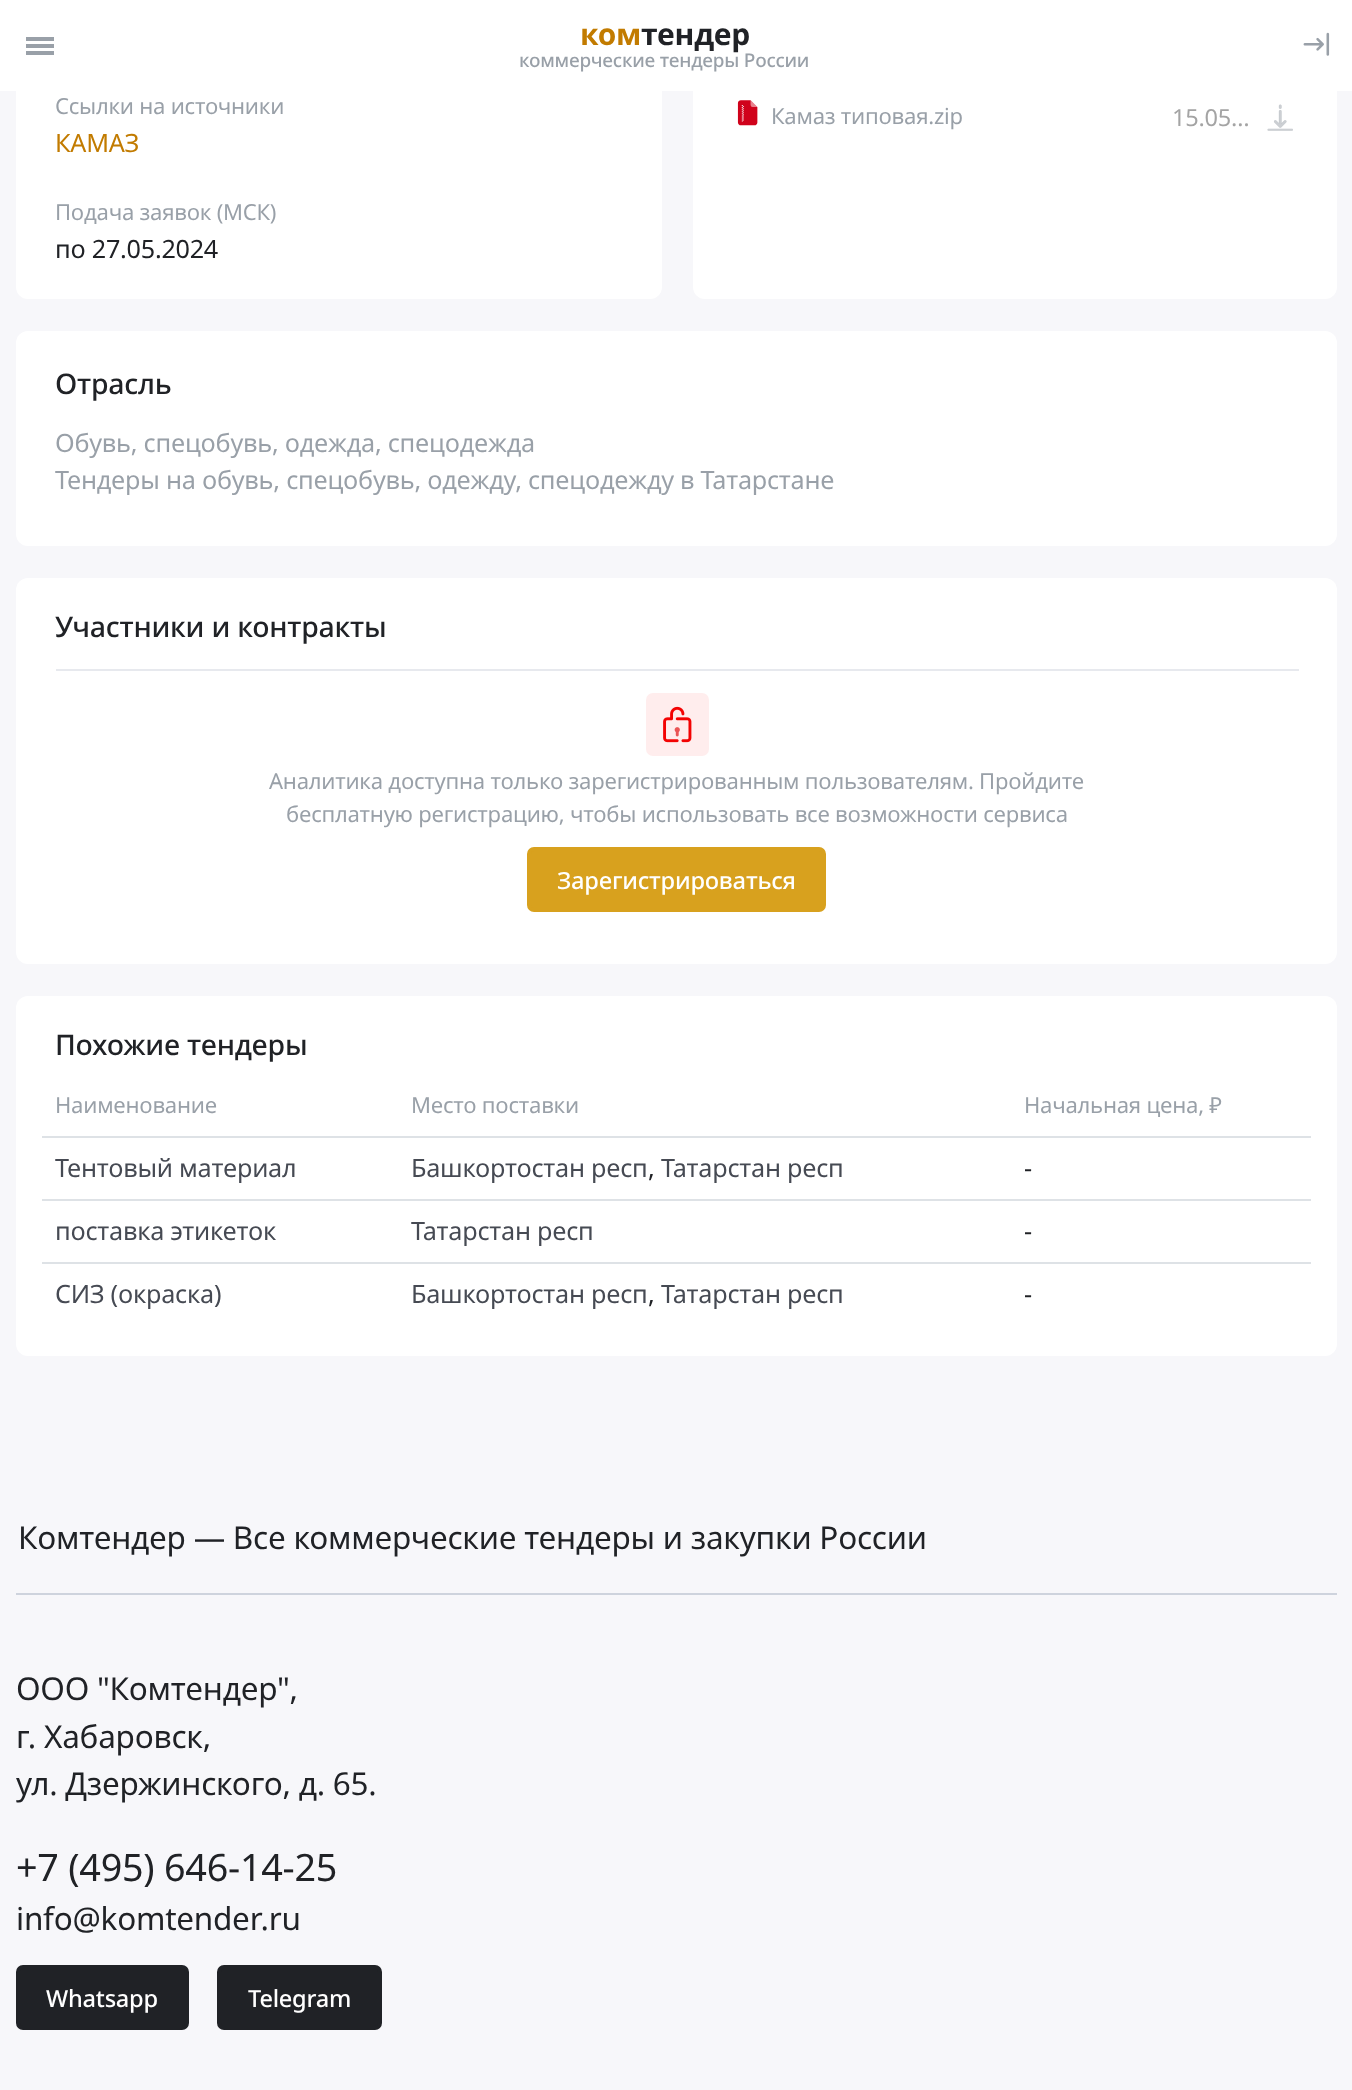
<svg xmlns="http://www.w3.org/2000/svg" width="1352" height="2090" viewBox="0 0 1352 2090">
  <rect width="100%" height="100%" fill="#f7f7fa"/>
  <rect x="16" y="-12" width="646" height="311" rx="12" fill="#fff"/>
  <rect x="693" y="-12" width="644" height="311" rx="12" fill="#fff"/>
  <path d="M0 0h1352v91H0z" fill="#fff"/>
  <path d="M26 37h28v4H26z" fill="#99a0a8"/>
  <path d="M26 44h28v4H26z" fill="#99a0a8"/>
  <path d="M26 51h28v4H26z" fill="#99a0a8"/>
  <image x="1303" y="32" width="27" height="24" href="img/1.png"/>
  <image x="737" y="100" width="21" height="26" href="img/2.png"/>
  <image x="1267" y="104" width="26" height="27" href="img/3.png"/>
  <rect x="16" y="331" width="1321" height="215" rx="12" fill="#fff"/>
  <rect x="16" y="578" width="1321" height="386" rx="12" fill="#fff"/>
  <path d="M56 669h1243v2H56z" fill="#e7e9ee"/>
  <rect x="646" y="693" width="63" height="63" rx="7" fill="#ffeded"/>
  <image x="663" y="706" width="29" height="37" href="img/4.png"/>
  <rect x="529" y="849" width="295" height="61" rx="5" fill="#d8a11e" stroke="#d8a11e" stroke-width="4"/>
  <rect x="16" y="996" width="1321" height="360" rx="12" fill="#fff"/>
  <path d="M42 1136h1269v2H42z" fill="#dee2e6"/>
  <path d="M42 1199h1269v2H42z" fill="#dee2e6"/>
  <path d="M42 1262h1269v2H42z" fill="#dee2e6"/>
  <path d="M16 1593h1321v2H16z" fill="#ced3dd"/>
  <rect x="18" y="1967" width="169" height="61" rx="5" fill="#202226" stroke="#202226" stroke-width="4"/>
  <rect x="219" y="1967" width="161" height="61" rx="5" fill="#202226" stroke="#202226" stroke-width="4"/>
  <text x="580" y="45" font-family="Noto Sans" font-size="30" font-weight="bold" letter-spacing="-0.25" fill="#c27b00">ком</text>
  <text x="641" y="45" font-family="Noto Sans" font-size="30" font-weight="bold" letter-spacing="-0.25" fill="#202226">тендер</text>
  <text x="519" y="67" font-family="Noto Sans" font-size="18.9" font-weight="500" letter-spacing="-0.25" fill="#99a0a8">коммерческие тендеры России</text>
  <text x="55" y="114" font-family="Noto Sans" font-size="22.05" letter-spacing="-0.25" fill="#99a0a8">Ссылки на источники</text>
  <text x="55" y="152" font-family="Noto Sans" font-size="25.2" letter-spacing="-0.25" fill="#c27b00">КАМАЗ</text>
  <text x="55" y="220" font-family="Noto Sans" font-size="22.05" letter-spacing="-0.25" fill="#99a0a8">Подача заявок (МСК)</text>
  <text x="55" y="258" font-family="Noto Sans" font-size="25.2" letter-spacing="-0.25" fill="#202226">по 27.05.2024</text>
  <text x="771" y="124" font-family="Noto Sans" font-size="22.05" letter-spacing="-0.25" fill="#99a0a8">Камаз типовая.zip</text>
  <text x="1172" y="126" font-family="Noto Sans" font-size="23.6" letter-spacing="-0.25" fill="#a4a4a4">15.05…</text>
  <text x="55" y="394" font-family="Noto Sans" font-size="28.4" font-weight="500" letter-spacing="-0.25" fill="#202226">Отрасль</text>
  <g font-family="Noto Sans" font-size="25.2" letter-spacing="-0.25" fill="#99a0a8">
    <text x="55" y="452">Обувь, спецобувь, одежда, спецодежда</text>
    <text x="55" y="489">Тендеры на обувь, спецобувь, одежду, спецодежду</text>
    <text x="680" y="489">в Татарстане</text>
  </g>
  <text x="55" y="637" font-family="Noto Sans" font-size="28.4" font-weight="500" letter-spacing="-0.25" fill="#202226">Участники и контракты</text>
  <g font-family="Noto Sans" font-size="22.05" letter-spacing="-0.25" fill="#99a0a8">
    <text x="269" y="789">Аналитика доступна только зарегистрированным пользователям. Пройдите</text>
    <text x="286" y="822">бесплатную регистрацию, чтобы использовать все возможности сервиса</text>
  </g>
  <text x="557" y="889" font-family="Noto Sans" font-size="23.6" font-weight="500" letter-spacing="-0.25" fill="#fff">Зарегистрироваться</text>
  <text x="55" y="1055" font-family="Noto Sans" font-size="28.4" font-weight="500" letter-spacing="-0.25" fill="#202226">Похожие тендеры</text>
  <g font-family="Noto Sans" font-size="22.05" letter-spacing="-0.25" fill="#99a0a8">
    <text x="55" y="1113">Наименование</text>
    <text x="411" y="1113">Место поставки</text>
    <text x="1024" y="1113">Начальная цена, ₽</text>
  </g>
  <g font-family="Noto Sans" font-size="25.2" letter-spacing="-0.25" fill="#464a53">
    <text x="55" y="1177">Тентовый материал</text>
    <text x="411" y="1177">Башкортостан респ</text>
  </g>
  <text x="648" y="1177" font-family="Noto Sans" font-size="25.2" letter-spacing="-0.25" fill="#202226">,</text>
  <text x="661" y="1177" font-family="Noto Sans" font-size="25.2" letter-spacing="-0.25" fill="#464a53">Татарстан респ</text>
  <text x="1024" y="1177" font-family="Noto Sans" font-size="25.2" letter-spacing="-0.25" fill="#202226">-</text>
  <g font-family="Noto Sans" font-size="25.2" letter-spacing="-0.25" fill="#464a53">
    <text x="55" y="1240">поставка этикеток</text>
    <text x="411" y="1240">Татарстан респ</text>
  </g>
  <text x="1024" y="1240" font-family="Noto Sans" font-size="25.2" letter-spacing="-0.25" fill="#202226">-</text>
  <g font-family="Noto Sans" font-size="25.2" letter-spacing="-0.25" fill="#464a53">
    <text x="55" y="1303">СИЗ (окраска)</text>
    <text x="411" y="1303">Башкортостан респ</text>
  </g>
  <text x="648" y="1303" font-family="Noto Sans" font-size="25.2" letter-spacing="-0.25" fill="#202226">,</text>
  <text x="661" y="1303" font-family="Noto Sans" font-size="25.2" letter-spacing="-0.25" fill="#464a53">Татарстан респ</text>
  <text x="1024" y="1303" font-family="Noto Sans" font-size="25.2" letter-spacing="-0.25" fill="#202226">-</text>
  <g font-family="Noto Sans" font-size="31.5" letter-spacing="-0.25" fill="#202226">
    <text x="18" y="1549">Комтендер — Все коммерческие тендеры и закупки России</text>
    <text x="16" y="1700">ООО "Комтендер",</text>
    <text x="16" y="1748">г. Хабаровск,</text>
    <text x="16" y="1795">ул. Дзержинского, д. 65.</text>
  </g>
  <text x="16" y="1881" font-family="Noto Sans" font-size="37.75" letter-spacing="-0.25" fill="#202226">+7 (495) 646-14-25</text>
  <text x="16" y="1930" font-family="Noto Sans" font-size="31.5" letter-spacing="-0.25" fill="#202226">info@komtender.ru</text>
  <g font-family="Noto Sans" font-size="23.6" font-weight="500" letter-spacing="-0.25" fill="#fff">
    <text x="46" y="2007">Whatsapp</text>
    <text x="248" y="2007">Telegram</text>
  </g>
</svg>
